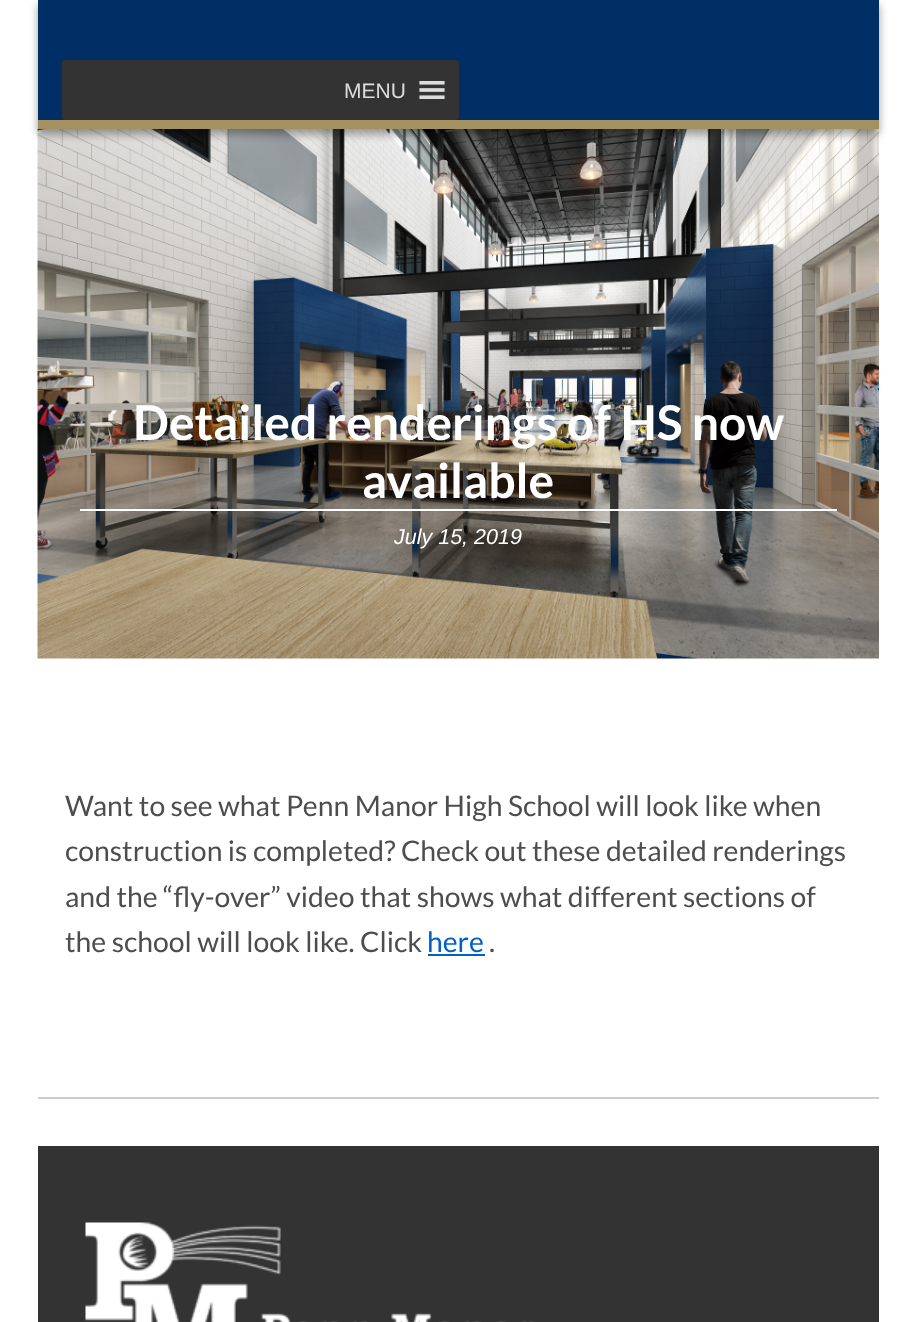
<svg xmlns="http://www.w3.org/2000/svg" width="916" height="1322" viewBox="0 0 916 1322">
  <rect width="100%" height="100%" fill="#fff"/>
  <image x="37" y="129" width="842" height="530" href="img/2.png"/>
  <path d="M38 5h841v129H38z" fill="#0000003b" filter="blur(4.5px)"/>
  <path d="M38 5h841v129H38z" fill="#00000029" filter="blur(4.5px)"/>
  <path d="M38 0h841v120H38z" fill="#002f65"/>
  <path d="M38 120h841v9H38z" fill="#a39161"/>
  <rect x="62" y="60" width="397" height="60" rx="3" fill="#333"/>
  <image x="419" y="81" width="26" height="18" href="img/1.png"/>
  <path d="M38 1097h841v2H38z" fill="#ccc"/>
  <path d="M80 509h757v2H80z" fill="#fff"/>
  <path d="M428 954h57v2H428z" fill="#015fcb"/>
  <path d="M38 1146h841v176H38z" fill="#333"/>
  <image x="85" y="1222" width="449" height="100" href="img/3.png"/>
  <text x="344" y="98" font-family="Liberation Sans" font-size="21" fill="#ddd">MENU</text>
  <g font-family="Lato" font-size="48" font-weight="bold" fill="#fff">
    <text x="133" y="440">Detailed renderings of HS now</text>
    <text x="362" y="498">available</text>
  </g>
  <text x="394" y="544" font-family="Liberation Sans" font-size="21.5" font-style="italic" fill="#fff">July 15, 2019</text>
  <g font-family="Lato" font-size="28.35" fill="#4d4d4d">
    <text x="65" y="816">Want to see what Penn Manor High School will look like when</text>
    <text x="65" y="861">construction is completed? Check out these detailed renderings</text>
    <text x="65" y="907">and the “fly-over” video that shows what different sections of</text>
    <text x="65" y="952">the school will look like. Click</text>
  </g>
  <text x="427" y="952" font-family="Lato" font-size="28.35" fill="#015fcb">here</text>
  <text x="489" y="952" font-family="Lato" font-size="28.35" fill="#4d4d4d">.</text>
</svg>
